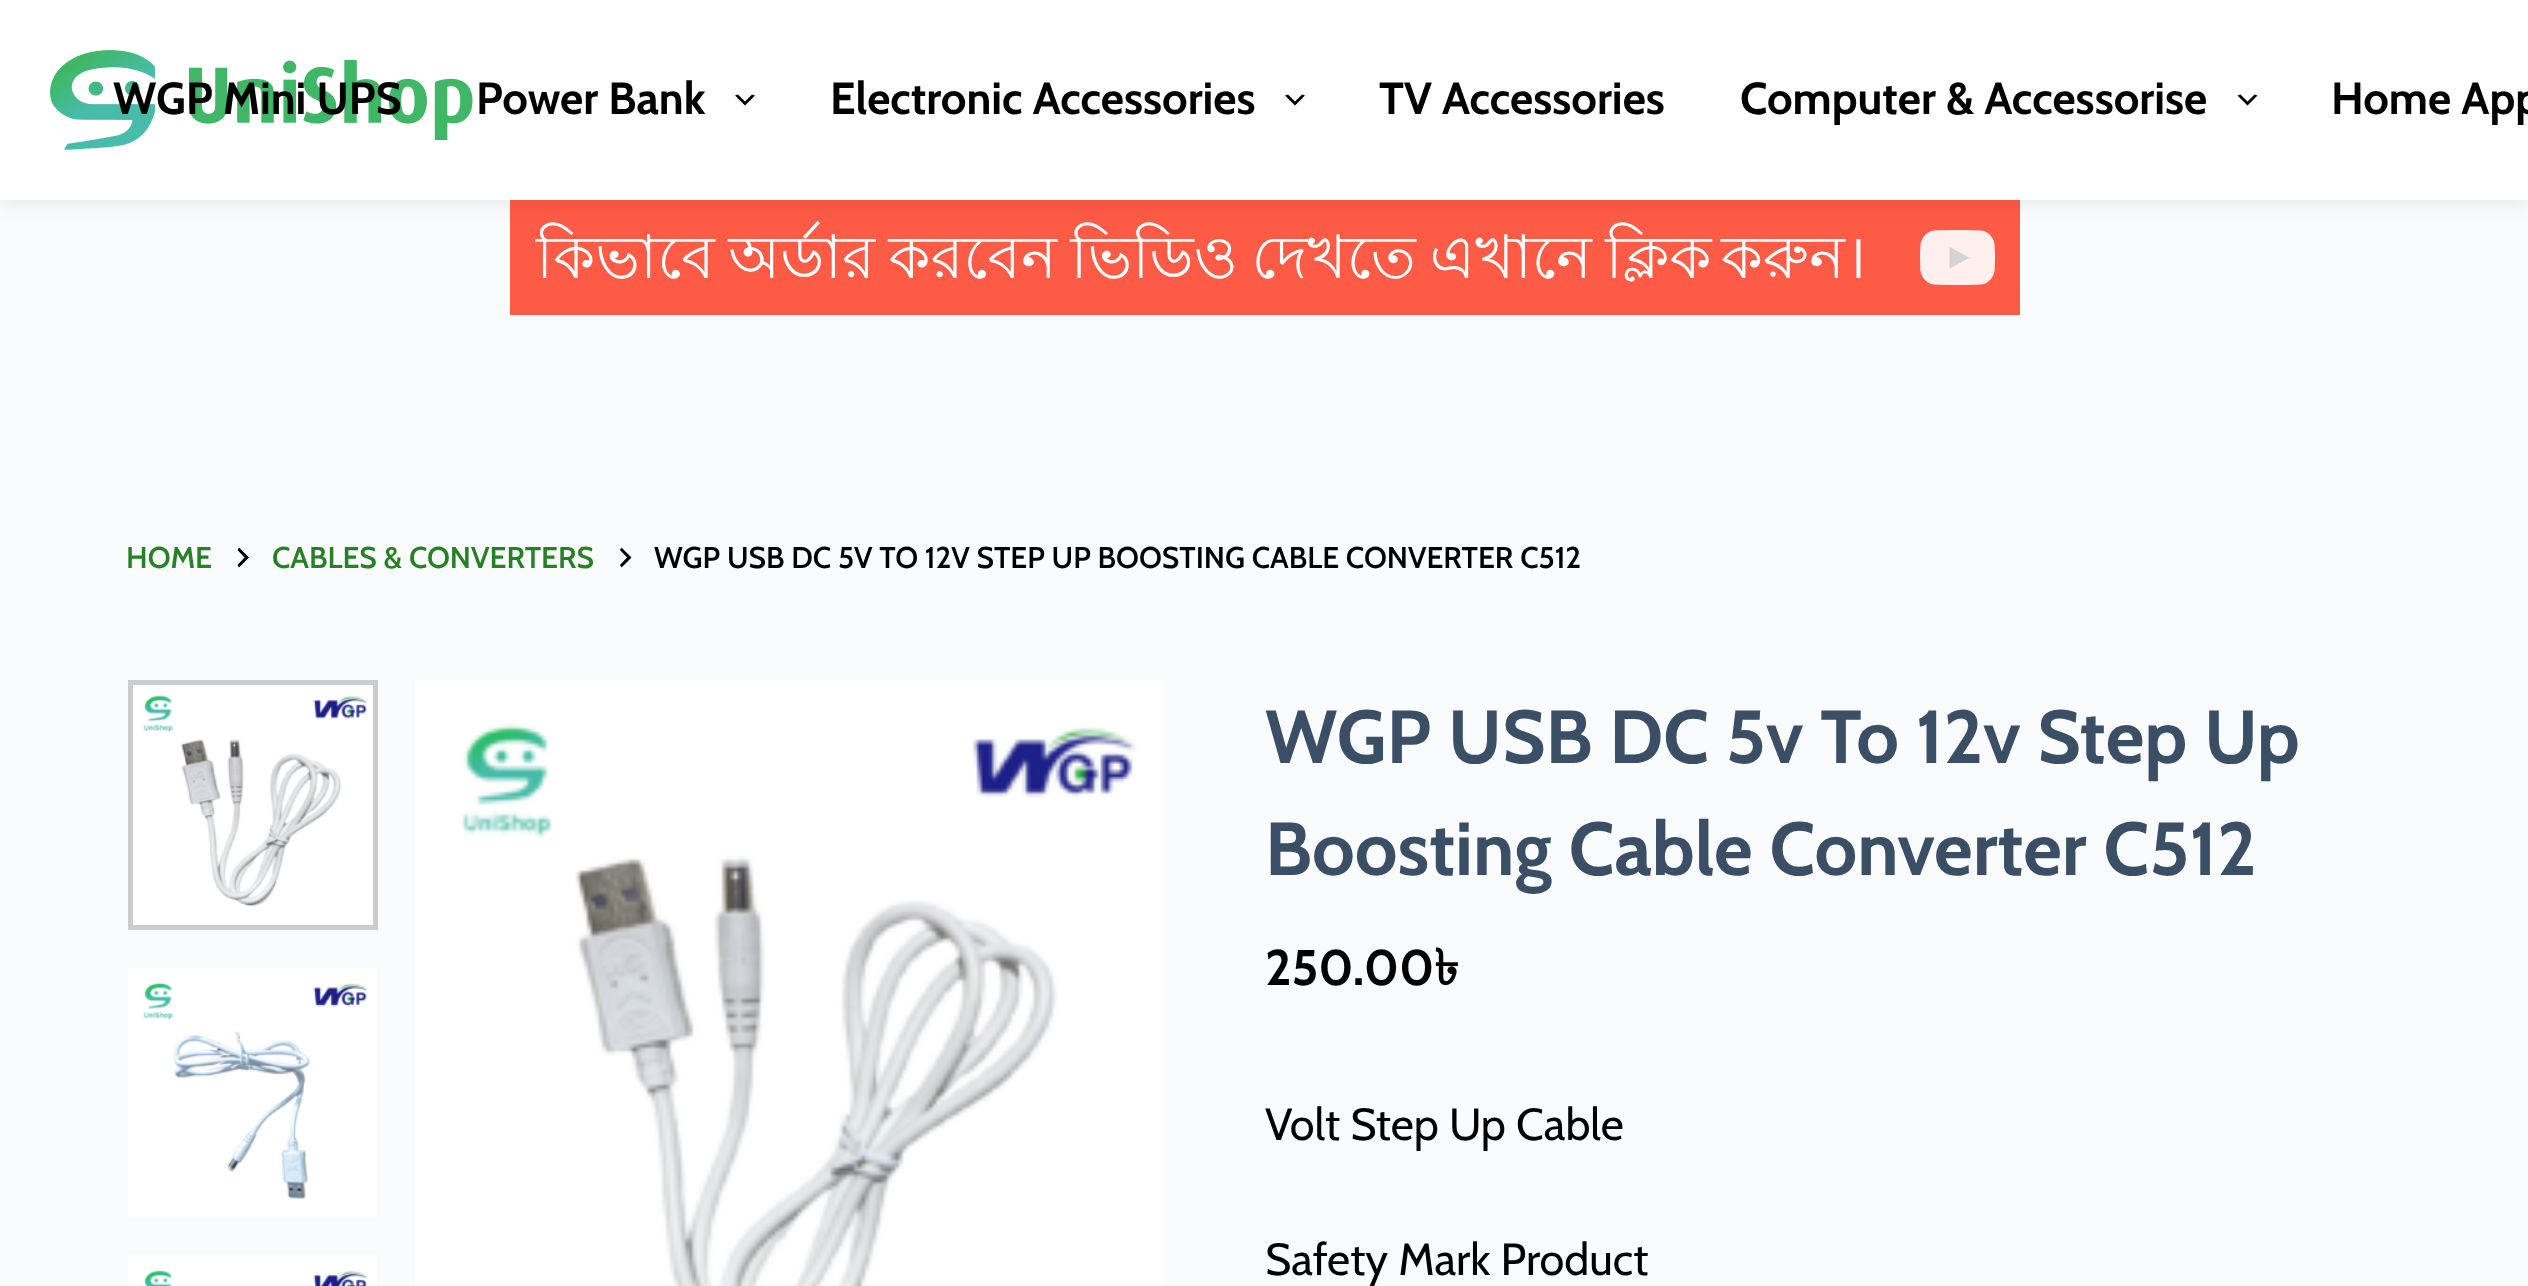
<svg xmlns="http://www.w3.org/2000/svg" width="2528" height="1286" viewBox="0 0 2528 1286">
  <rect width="100%" height="100%" fill="#fafbfc"/>
  <path d="M510 200h1510v115H510z" fill="#fe5b46"/>
  <image x="1920" y="230" width="75" height="55" href="img/2.png"/>
  <path d="M0 0h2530v200H0z" fill="#0000001a" filter="blur(12.5px)"/>
  <path d="M0 0h2528v200H0z" fill="#fff"/>
  <image x="50" y="50" width="423" height="100" href="img/1.png"/>
  <path d="M738 94.5L745 101.5L752 94.5L755 95.5L745 105.5L735 95.5Z" fill="#000"/>
  <path d="M1288 94.5L1295 101.5L1302 94.5L1305 95.5L1295 105.5L1285 95.5Z" fill="#000"/>
  <path d="M2240.5 94.5L2247.5 101.5L2254.5 94.5L2257.5 95.5L2247.5 105.5L2237.5 95.5Z" fill="#000"/>
  <path d="M237.5 565L244.5 557.5L237.5 550L239 547.5L249 557.5L239 567.5Z" fill="#000"/>
  <path d="M620 565L627 557.5L620 550L621.5 547.5L631.5 557.5L621.5 567.5Z" fill="#000"/>
  <image x="128" y="680" width="249" height="250" href="img/3.png"/>
  <path d="M130.5 682.5h245v245H130.5z" fill="none" stroke="#00000033" stroke-width="5"/>
  <image x="128" y="968" width="249" height="249" href="img/4.png"/>
  <image x="128" y="1255" width="249" height="31" href="img/5.png"/>
  <image x="415" y="680" width="750" height="606" href="img/6.png"/>
  <g font-family="Cabin" font-size="45" font-weight="bold" fill="#000">
    <text x="113" y="114">WGP Mini UPS</text>
    <text x="476" y="114">Power Bank</text>
    <text x="830" y="114">Electronic Accessories</text>
    <text x="1379" y="114">TV Accessories</text>
    <text x="1740" y="114">Computer &amp; Accessorise</text>
    <text x="2331" y="114">Home App</text>
  </g>
  <g font-family="Lohit Bengali" font-size="60" fill="#fff">
    <text x="536" y="278" word-spacing="-3">কিভাবে অর্ডার করবেন ভিডিও দেখতে এখানে ক্লিক</text>
    <text x="1721" y="278">করুন।</text>
  </g>
  <g font-family="Cabin" font-size="30" font-weight="600" fill="#268024">
    <text x="126" y="568">HOME</text>
    <text x="272" y="568">CABLES &amp; CONVERTERS</text>
  </g>
  <text x="654" y="568" font-family="Cabin" font-size="30" font-weight="600" fill="#000">WGP USB DC 5V TO 12V STEP UP BOOSTING CABLE CONVERTER C512</text>
  <g font-family="Cabin" font-size="75" font-weight="bold" fill="#3a4f66">
    <text x="1265" y="763">WGP USB DC 5v To 12v Step Up</text>
    <text x="1265" y="875">Boosting Cable Converter C512</text>
  </g>
  <text x="1265" y="985" font-family="Cabin" font-size="50" font-weight="bold" fill="#000">250.00</text>
  <text x="1434" y="985" font-family="Lohit Bengali" font-size="50" font-weight="bold" fill="#000">৳</text>
  <g font-family="Cabin" font-size="45" fill="#000">
    <text x="1265" y="1140">Volt Step Up Cable</text>
    <text x="1265" y="1275">Safety Mark Product</text>
  </g>
</svg>
